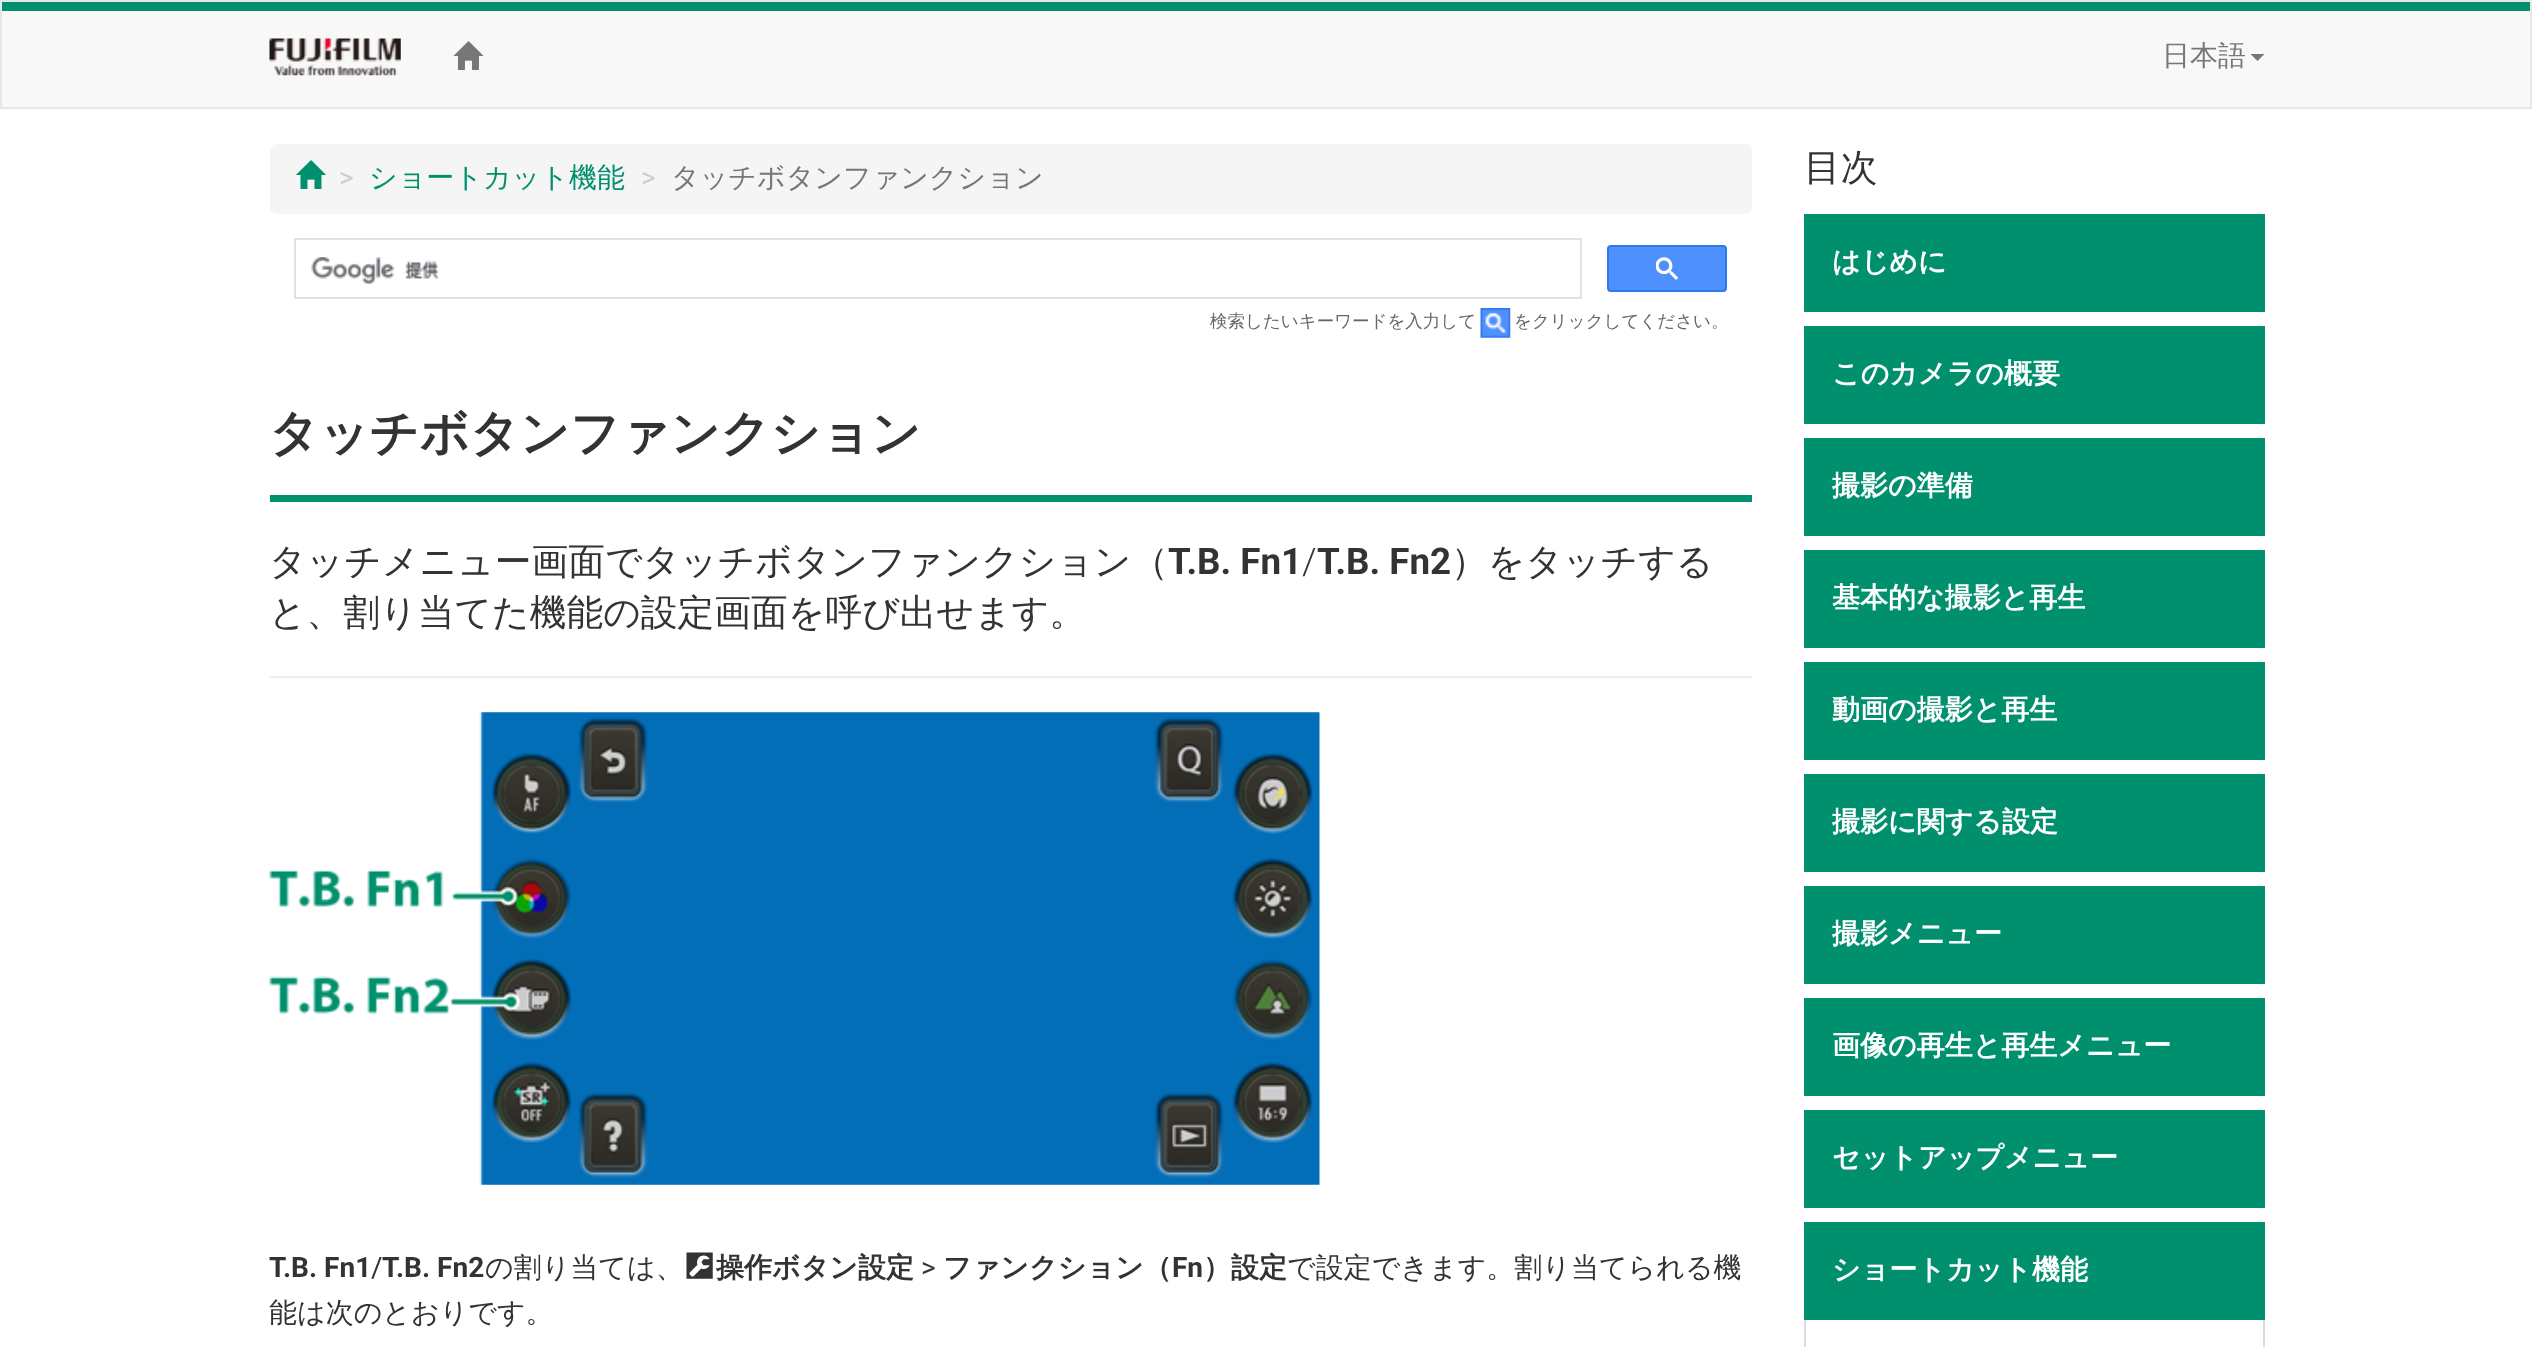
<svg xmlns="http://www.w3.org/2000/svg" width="2532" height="1347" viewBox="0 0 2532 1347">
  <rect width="100%" height="100%" fill="#fff"/>
  <path d="M2 11h2528v96H2z" fill="#f8f8f8"/>
  <path d="M2 2h2528v9H2z" fill="#01906d"/>
  <path d="M1 1h2530v107H1z" fill="none" stroke="#e7e7e7" stroke-width="2"/>
  <image x="269" y="38" width="132" height="38" href="img/1.png"/>
  <image x="453" y="41" width="31" height="29" href="img/2.png"/>
  <path d="M2250.5 54H2264.5L2257.5 61Z" fill="#777"/>
  <rect x="270" y="144" width="1482" height="70" rx="7" fill="#f5f5f5"/>
  <image x="296" y="160" width="30" height="29" href="img/3.png"/>
  <path d="M295 239h1286v59H295z" fill="none" stroke="#dfe1e5" stroke-width="2"/>
  <image x="311" y="257" width="128" height="27" href="img/4.png"/>
  <rect x="1608" y="246" width="118" height="45" rx="3" fill="#4d90fe" stroke="#3079ed" stroke-width="2"/>
  <image x="1656" y="257" width="22" height="23" href="img/5.png"/>
  <image x="1480" y="308" width="31" height="30" href="img/6.png"/>
  <path d="M270 495h1482v7H270z" fill="#00906d"/>
  <path d="M270 676h1482v2H270z" fill="#eee"/>
  <image x="269" y="712" width="1051" height="473" href="img/7.png"/>
  <path d="M1804 214h461v98H1804z" fill="#00906d"/>
  <path d="M1804 326h461v98H1804z" fill="#00906d"/>
  <path d="M1804 438h461v98H1804z" fill="#00906d"/>
  <path d="M1804 550h461v98H1804z" fill="#00906d"/>
  <path d="M1804 662h461v98H1804z" fill="#00906d"/>
  <path d="M1804 774h461v98H1804z" fill="#00906d"/>
  <path d="M1804 886h461v98H1804z" fill="#00906d"/>
  <path d="M1804 998h461v98H1804z" fill="#00906d"/>
  <path d="M1804 1110h461v98H1804z" fill="#00906d"/>
  <path d="M1804 1222h461v98H1804z" fill="#00906d"/>
  <path d="M2263 1320h2v27H2263z" fill="#ddd"/>
  <path d="M1804 1320h2v27H1804z" fill="#ddd"/>
  <text x="2162" y="65" font-family="WenQuanYi Zen Hei" font-size="28" font-weight="500" fill="#777">日本語</text>
  <text x="339" y="187" font-family="Roboto" font-size="28" fill="#ccc">&gt;</text>
  <text x="369" y="187" font-family="WenQuanYi Zen Hei" font-size="28" font-weight="500" fill="#00906d">ショートカット機能</text>
  <text x="641" y="187" font-family="Roboto" font-size="28" fill="#ccc">&gt;</text>
  <text x="671" y="187" font-family="WenQuanYi Zen Hei" font-size="28" font-weight="500" fill="#777">タッチボタンファンクション</text>
  <g font-family="WenQuanYi Zen Hei" font-size="17.5" font-weight="500" fill="#666">
    <text x="1210" y="327">検索したいキーワードを入力して</text>
    <text x="1514" y="327">をクリックしてください。</text>
  </g>
  <text x="269" y="450" font-family="WenQuanYi Zen Hei" font-size="49" font-weight="bold" fill="#333">タッチボタンファンクション</text>
  <text x="269" y="574" font-family="WenQuanYi Zen Hei" font-size="36.75" font-weight="500" fill="#333">タッチメニュー画面でタッチボタンファンクション（</text>
  <text x="1168" y="574" font-family="Roboto" font-size="36.75" font-weight="bold" fill="#333">T.B. Fn1</text>
  <text x="1302" y="574" font-family="Roboto" font-size="36.75" font-weight="300" fill="#333">/</text>
  <text x="1317" y="574" font-family="Roboto" font-size="36.75" font-weight="bold" fill="#333">T.B. Fn2</text>
  <g font-family="WenQuanYi Zen Hei" font-size="36.75" font-weight="500" fill="#333">
    <text x="1451" y="574">）をタッチする</text>
    <text x="269" y="625">と、割り当てた機能の設定画面を呼び出せます。</text>
  </g>
  <text x="269" y="1277" font-family="Roboto" font-size="28" font-weight="bold" fill="#333">T.B. Fn1</text>
  <text x="371" y="1277" font-family="Roboto" font-size="28" fill="#333">/</text>
  <text x="382" y="1277" font-family="Roboto" font-size="28" font-weight="bold" fill="#333">T.B. Fn2</text>
  <text x="485" y="1277" font-family="WenQuanYi Zen Hei" font-size="28" font-weight="500" fill="#333">の割り当ては、</text>
  <text x="683" y="1277" font-family="'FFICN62'" font-size="35" fill="#333">D</text>
  <text x="716" y="1277" font-family="WenQuanYi Zen Hei" font-size="28" font-weight="bold" fill="#333">操作ボタン設定</text>
  <text x="921" y="1277" font-family="Roboto" font-size="28" fill="#333">&gt;</text>
  <text x="943" y="1277" font-family="WenQuanYi Zen Hei" font-size="28" font-weight="bold" fill="#333">ファンクション（</text>
  <text x="1172" y="1277" font-family="Roboto" font-size="28" font-weight="bold" fill="#333">Fn</text>
  <text x="1203" y="1277" font-family="WenQuanYi Zen Hei" font-size="28" font-weight="bold" fill="#333">）設定</text>
  <g font-family="WenQuanYi Zen Hei" font-size="28" font-weight="500" fill="#333">
    <text x="1287" y="1277">で設定できます。割り当てられる機</text>
    <text x="269" y="1322">能は次のとおりです。</text>
  </g>
  <text x="1804" y="180" font-family="WenQuanYi Zen Hei" font-size="36.75" font-weight="500" fill="#333">目次</text>
  <g font-family="WenQuanYi Zen Hei" font-size="28" font-weight="bold" fill="#fff">
    <text x="1832" y="271">はじめに</text>
    <text x="1832" y="383">このカメラの概要</text>
    <text x="1832" y="495">撮影の準備</text>
    <text x="1832" y="607">基本的な撮影と再生</text>
    <text x="1832" y="719">動画の撮影と再生</text>
    <text x="1832" y="831">撮影に関する設定</text>
    <text x="1832" y="943">撮影メニュー</text>
    <text x="1832" y="1055">画像の再生と再生メニュー</text>
    <text x="1832" y="1167">セットアップメニュー</text>
    <text x="1832" y="1279">ショートカット機能</text>
  </g>
</svg>
